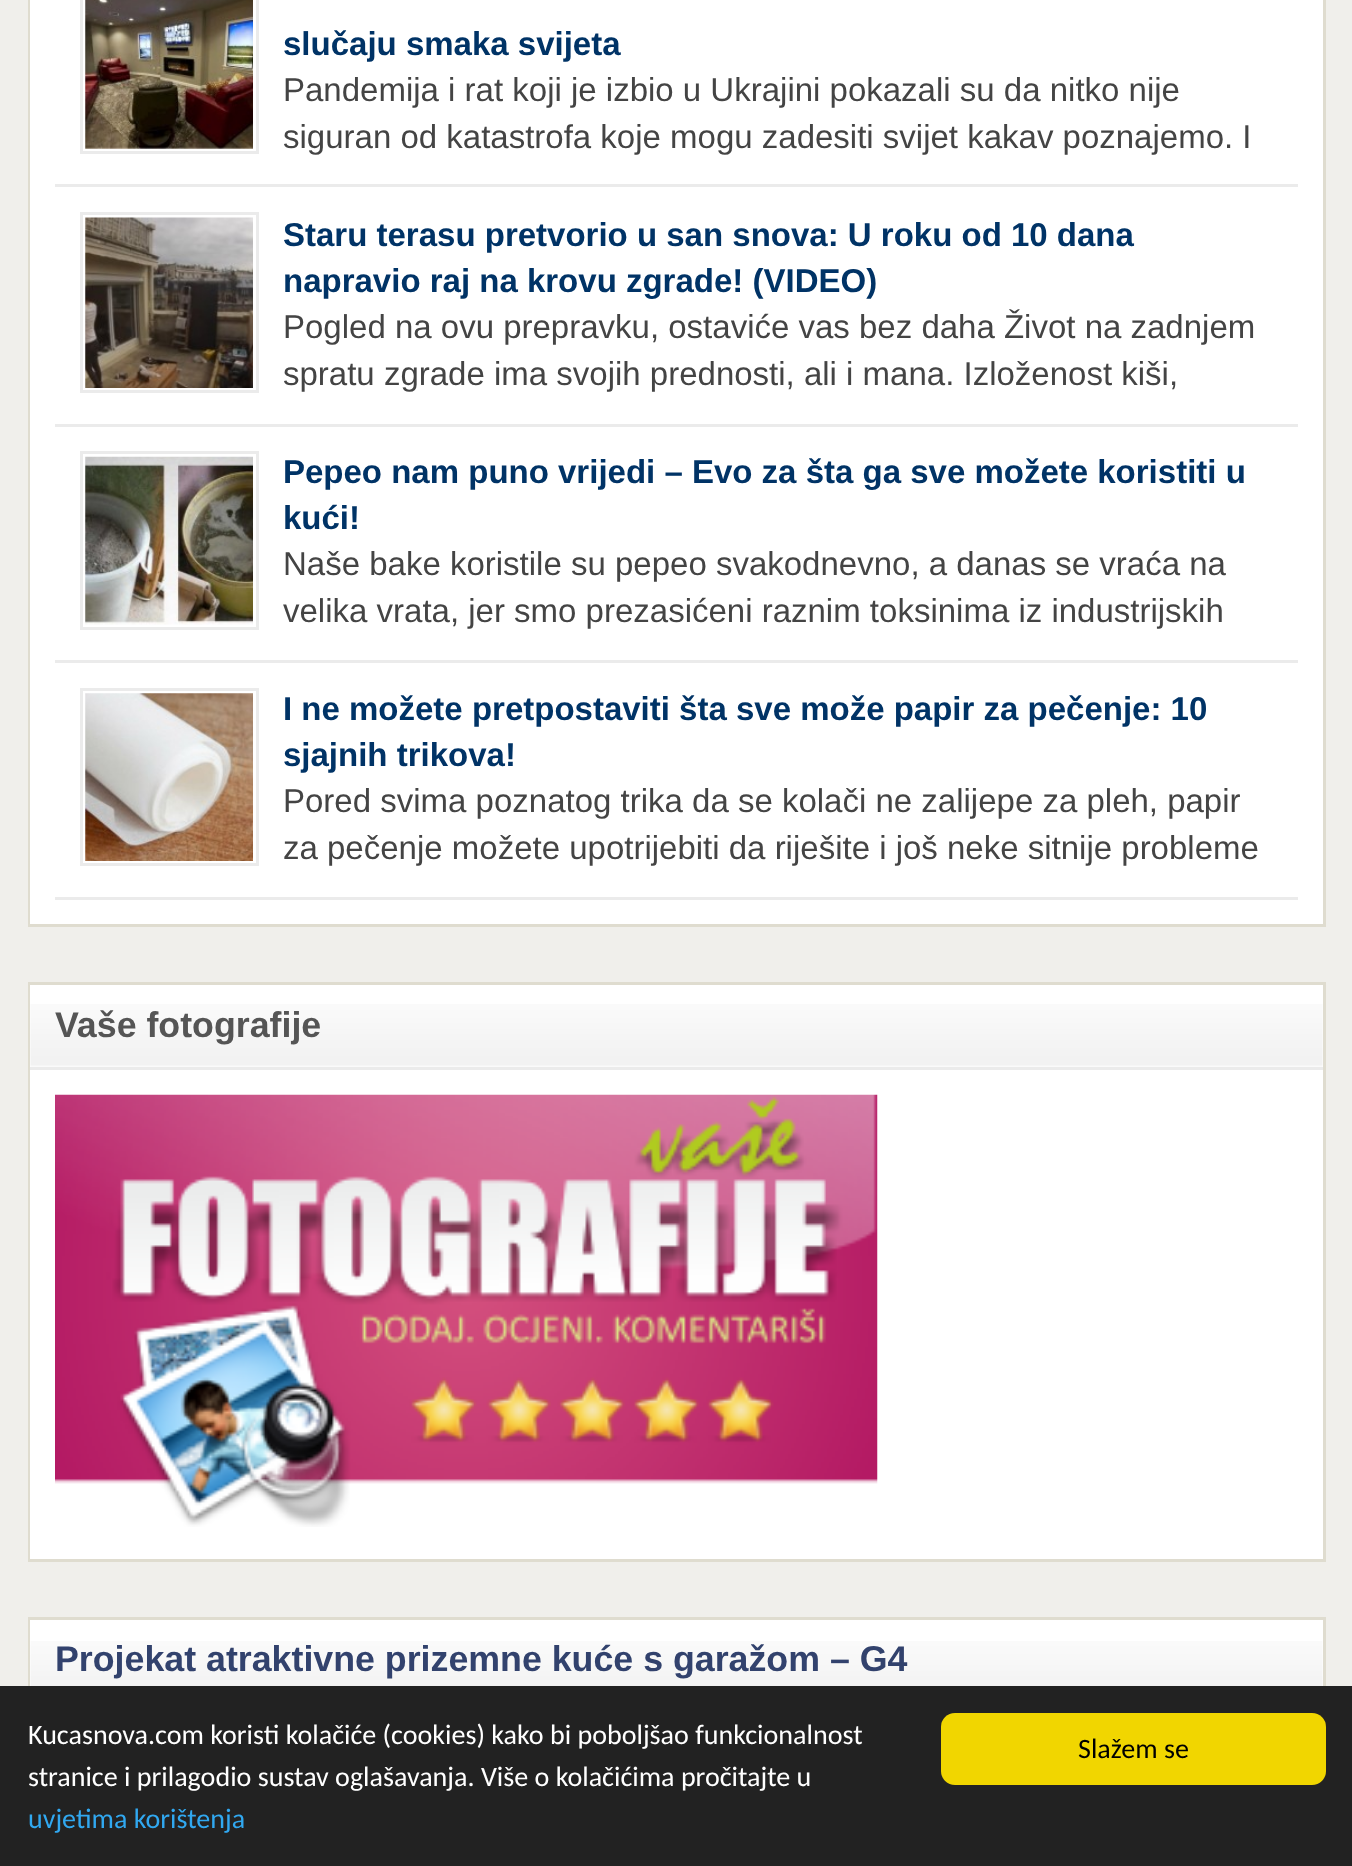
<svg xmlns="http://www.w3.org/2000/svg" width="1352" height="1866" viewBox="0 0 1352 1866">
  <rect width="100%" height="100%" fill="#f0efeb"/>
  <path d="M29.5 -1.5h1295v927H29.5z" fill="none" stroke="#dfdccf" stroke-width="3"/>
  <path d="M30 0h1293v924H30z" fill="#fff"/>
  <path d="M55 184h1243v3H55z" fill="#ebebeb"/>
  <path d="M81.5 -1.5h176v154H81.5z" fill="none" stroke="#ebebeb" stroke-width="3"/>
  <image x="85" y="0" width="168" height="149" href="img/1.png"/>
  <path d="M55 424h1243v3H55z" fill="#ebebeb"/>
  <path d="M81.5 213.5h176v178H81.5z" fill="none" stroke="#ebebeb" stroke-width="3"/>
  <image x="85" y="217" width="168" height="171" href="img/2.png"/>
  <path d="M55 660h1243v3H55z" fill="#ebebeb"/>
  <path d="M81.5 452.5h176v176H81.5z" fill="none" stroke="#ebebeb" stroke-width="3"/>
  <image x="85" y="456" width="168" height="169" href="img/3.png"/>
  <path d="M55 897h1243v3H55z" fill="#ebebeb"/>
  <path d="M81.5 689.5h176v175H81.5z" fill="none" stroke="#ebebeb" stroke-width="3"/>
  <image x="85" y="693" width="168" height="168" href="img/4.png"/>
  <path d="M29.5 983.5h1295v577H29.5z" fill="none" stroke="#dfdccf" stroke-width="3"/>
  <path d="M30 985h1293v82H30z" fill="#fff"/>
  <image x="30" y="1004" width="1293" height="63" href="img/5.png"/>
  <path d="M30 1067h1293v3H30z" fill="#ebebeb"/>
  <path d="M30 1070h1293v489H30z" fill="#fff"/>
  <image x="55" y="1094" width="823" height="433" href="img/6.png"/>
  <path d="M29.5 1618.5h1295v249H29.5z" fill="none" stroke="#dfdccf" stroke-width="3"/>
  <path d="M30 1620h1293v66H30z" fill="#fff"/>
  <image x="30" y="1641" width="1293" height="45" href="img/7.png"/>
  <path d="M0 1686h1352v180H0z" fill="#222"/>
  <rect x="941" y="1713" width="385" height="72" rx="14" fill="#f1d600"/>
  <text x="283" y="55" font-family="Liberation Sans" font-size="33" font-weight="bold" fill="#036">slučaju smaka svijeta</text>
  <g font-family="Liberation Sans" font-size="33" fill="#444">
    <text x="283" y="101">Pandemija i rat koji je izbio u Ukrajini pokazali su da nitko nije</text>
    <text x="283" y="148">siguran od katastrofa koje mogu zadesiti svijet kakav poznajemo. I</text>
  </g>
  <g font-family="Liberation Sans" font-size="33" font-weight="bold" fill="#036">
    <text x="283" y="246">Staru terasu pretvorio u san snova: U roku od 10 dana</text>
    <text x="283" y="292">napravio raj na krovu zgrade! (VIDEO)</text>
  </g>
  <g font-family="Liberation Sans" font-size="33" fill="#444">
    <text x="283" y="338">Pogled na ovu prepravku, ostaviće vas bez daha Život na zadnjem</text>
    <text x="283" y="385">spratu zgrade ima svojih prednosti, ali i mana. Izloženost kiši,</text>
  </g>
  <g font-family="Liberation Sans" font-size="33" font-weight="bold" fill="#036">
    <text x="283" y="483">Pepeo nam puno vrijedi – Evo za šta ga sve možete koristiti u</text>
    <text x="283" y="529">kući!</text>
  </g>
  <g font-family="Liberation Sans" font-size="33" fill="#444">
    <text x="283" y="575">Naše bake koristile su pepeo svakodnevno, a danas se vraća na</text>
    <text x="283" y="622">velika vrata, jer smo prezasićeni raznim toksinima iz industrijskih</text>
  </g>
  <g font-family="Liberation Sans" font-size="33" font-weight="bold" fill="#036">
    <text x="283" y="720">I ne možete pretpostaviti šta sve može papir za pečenje: 10</text>
    <text x="283" y="766">sjajnih trikova!</text>
  </g>
  <g font-family="Liberation Sans" font-size="33" fill="#444">
    <text x="283" y="812">Pored svima poznatog trika da se kolači ne zalijepe za pleh, papir</text>
    <text x="283" y="859">za pečenje možete upotrijebiti da riješite i još neke sitnije probleme</text>
  </g>
  <text x="55" y="1037" font-family="Liberation Sans" font-size="35.75" font-weight="bold" fill="#555">Vaše fotografije</text>
  <text x="55" y="1671" font-family="Liberation Sans" font-size="35.75" font-weight="bold" fill="#32426d">Projekat atraktivne prizemne kuće s garažom – G4</text>
  <g font-family="Carlito" font-size="28.05" fill="#fff">
    <text x="28" y="1744">Kucasnova.com koristi kolačiće (cookies) kako bi poboljšao funkcionalnost</text>
    <text x="28" y="1786">stranice i prilagodio sustav oglašavanja. Više o kolačićima pročitajte u</text>
  </g>
  <text x="28" y="1828" font-family="Carlito" font-size="28.05" fill="#31a8f0">uvjetima korištenja</text>
  <text x="1078" y="1758" font-family="Carlito" font-size="28.05" fill="#000">Slažem se</text>
</svg>
